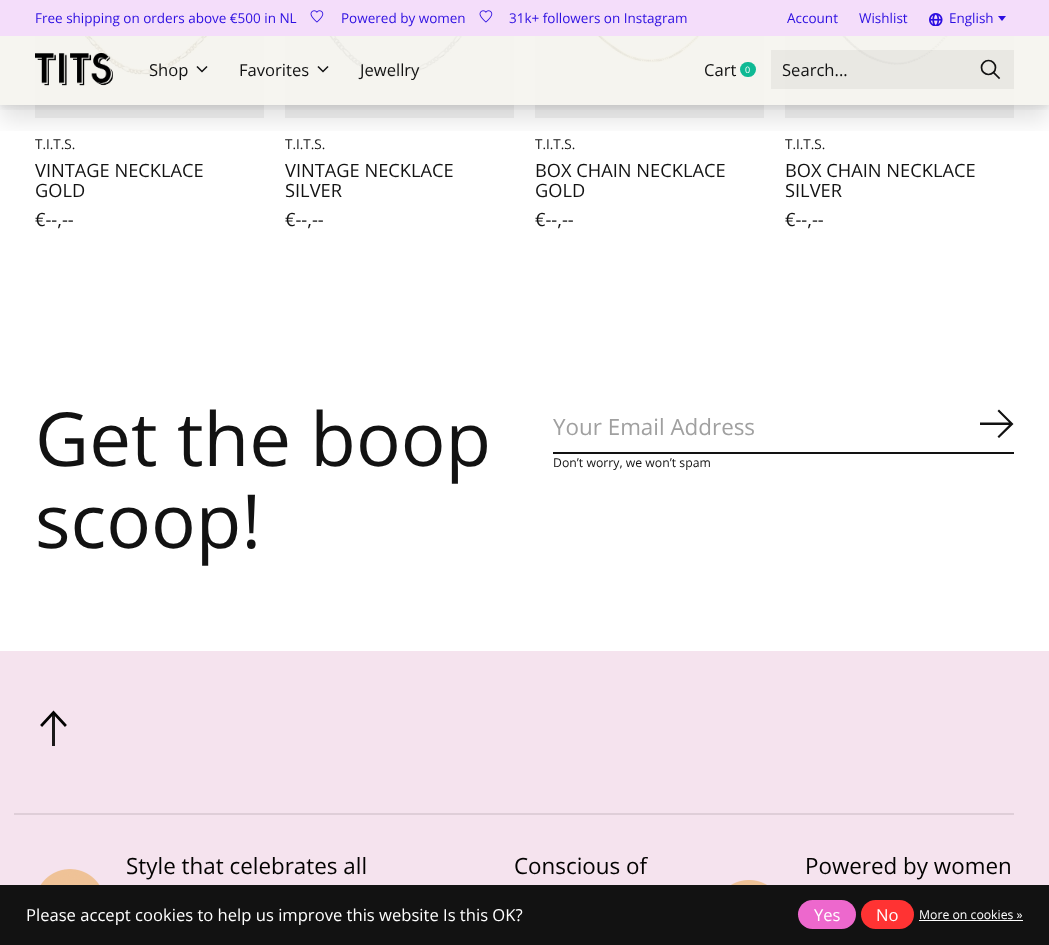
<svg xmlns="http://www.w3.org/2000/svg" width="1049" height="945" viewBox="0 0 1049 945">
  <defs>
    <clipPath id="clip1"><path d="M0 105h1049v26H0z"/></clipPath>
    <clipPath id="clip2"><path d="M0 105h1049v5H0z"/></clipPath>
  </defs>
  <rect width="100%" height="100%" fill="#fff"/>
  <path d="M35 36h229v82H35z" fill="#f2f2f2"/>
  <image x="61" y="36" width="169" height="40" href="img/4.png"/>
  <path d="M285 36h229v82H285z" fill="#f2f2f2"/>
  <image x="311" y="36" width="174" height="41" href="img/5.png"/>
  <path d="M535 36h229v82H535z" fill="#f2f2f2"/>
  <image x="570" y="36" width="156" height="28" href="img/6.png"/>
  <path d="M785 36h229v82H785z" fill="#f2f2f2"/>
  <image x="819" y="36" width="152" height="31" href="img/7.png"/>
  <g clip-path="url(#clip1)">
    <path d="M0 47h1049v72H0z" fill="#0000001f" filter="blur(12.5px)"/>
  </g>
  <g clip-path="url(#clip2)">
    <path d="M0 36h1049v72H0z" fill="#00000014" filter="blur(3px)"/>
  </g>
  <path d="M0 0h1049v36H0z" fill="#f4ddfa"/>
  <image x="310" y="10" width="14" height="13" href="img/1.png"/>
  <image x="479" y="10" width="14" height="13" href="img/1.png"/>
  <image x="929" y="13" width="14" height="13" href="img/2.png"/>
  <path d="M1002 21L1006 16H998Z" fill="#2c0ee1"/>
  <path d="M0 36h1049v69H0z" fill="#f5f4eee6"/>
  <image x="35" y="53" width="78" height="33" href="img/3.png"/>
  <path d="M197.5 67L202 71.5M206.5 67L202 71.5" fill="none" stroke="#121212" stroke-width="1.5" stroke-linecap="square"/>
  <path d="M318.5 67L323 71.5M327.5 67L323 71.5" fill="none" stroke="#121212" stroke-width="1.5" stroke-linecap="square"/>
  <rect x="740" y="62" width="16" height="15" rx="7.5" fill="#0eb994"/>
  <path d="M771 50h243v39H771z" fill="#1212120d"/>
  <path d="M999 78L993.5 72.5" fill="none" stroke="#121212" stroke-width="1.7" stroke-linecap="square"/>
  <circle cx="988.5" cy="67.5" r="7" fill="none" stroke="#121212" stroke-width="1.7"/>
  <path d="M553 452h461v2H553z" fill="#121212"/>
  <path d="M999 438L1013.5 424L999 409.5L997.5 411L1009 422.5H980V425H1009L997.5 436.5Z" fill="#121212"/>
  <path d="M0 651h1049v234H0z" fill="#f5e3ee"/>
  <path d="M52 713h3v33H52z" fill="#1b1919"/>
  <path d="M42 725L53.5 712.5L65 725" fill="none" stroke="#030201" stroke-width="2.7" stroke-linecap="square"/>
  <path d="M14 813h1000v2H14z" fill="#dfced8"/>
  <image x="40" y="869" width="60" height="16" href="img/8.png"/>
  <image x="731" y="880" width="36" height="5" href="img/9.png"/>
  <path d="M0 885h1049v60H0z" fill="#121212"/>
  <rect x="798" y="900" width="58" height="29" rx="14.5" fill="#ed68cd"/>
  <rect x="861" y="900" width="53" height="29" rx="14.5" fill="#f33"/>
  <path d="M919 920h104v1H919z" fill="#fff"/>
  <g font-family="Open Sans" font-size="13.5" fill="#2c0ee1">
    <text x="35" y="23">Free shipping on orders above €500 in NL</text>
    <text x="341" y="23">Powered by women</text>
    <text x="509" y="23">31k+ followers on Instagram</text>
    <text x="787" y="23">Account</text>
    <text x="859" y="23">Wishlist</text>
    <text x="949" y="23">English</text>
  </g>
  <g font-family="Open Sans" font-size="16.6" fill="#121212">
    <text x="149" y="76">Shop</text>
    <text x="239" y="76">Favorites</text>
    <text x="360" y="76">Jewellry</text>
    <text x="704" y="76">Cart</text>
  </g>
  <text x="745" y="73" font-family="Open Sans" font-size="9" fill="#fff">0</text>
  <text x="782" y="76" font-family="Open Sans" font-size="16.6" fill="#121212">Search...</text>
  <text x="35" y="149" font-family="Open Sans" font-size="13.5" fill="#121212">T.I.T.S.</text>
  <g font-family="Open Sans" font-size="18.25" fill="#121212">
    <text x="35" y="177">VINTAGE NECKLACE</text>
    <text x="35" y="197">GOLD</text>
    <text x="35" y="226">€--,--</text>
  </g>
  <text x="285" y="149" font-family="Open Sans" font-size="13.5" fill="#121212">T.I.T.S.</text>
  <g font-family="Open Sans" font-size="18.25" fill="#121212">
    <text x="285" y="177">VINTAGE NECKLACE</text>
    <text x="285" y="197">SILVER</text>
    <text x="285" y="226">€--,--</text>
  </g>
  <text x="535" y="149" font-family="Open Sans" font-size="13.5" fill="#121212">T.I.T.S.</text>
  <g font-family="Open Sans" font-size="18.25" fill="#121212">
    <text x="535" y="177">BOX CHAIN NECKLACE</text>
    <text x="535" y="197">GOLD</text>
    <text x="535" y="226">€--,--</text>
  </g>
  <text x="785" y="149" font-family="Open Sans" font-size="13.5" fill="#121212">T.I.T.S.</text>
  <g font-family="Open Sans" font-size="18.25" fill="#121212">
    <text x="785" y="177">BOX CHAIN NECKLACE</text>
    <text x="785" y="197">SILVER</text>
    <text x="785" y="226">€--,--</text>
  </g>
  <g font-family="Open Sans" font-size="74.5" fill="#121212">
    <text x="35" y="466">Get the boop</text>
    <text x="35" y="548">scoop!</text>
  </g>
  <text x="553" y="435" font-family="Open Sans" font-size="22.4" fill="#a0a0a0">Your Email Address</text>
  <text x="553" y="467" font-family="Open Sans" font-size="12.25" fill="#121212">Don’t worry, we won’t spam</text>
  <g font-family="Open Sans" font-size="22.4" fill="#030201">
    <text x="126" y="874">Style that celebrates all</text>
    <text x="514" y="874">Conscious of</text>
    <text x="805" y="874">Powered by women</text>
  </g>
  <g font-family="Open Sans" font-size="16.6" fill="#fff">
    <text x="26" y="921">Please accept cookies to help us improve this website Is this OK?</text>
    <text x="814" y="921">Yes</text>
    <text x="876" y="921">No</text>
  </g>
  <text x="919" y="919" font-family="Open Sans" font-size="12.25" fill="#fff">More on cookies »</text>
</svg>
